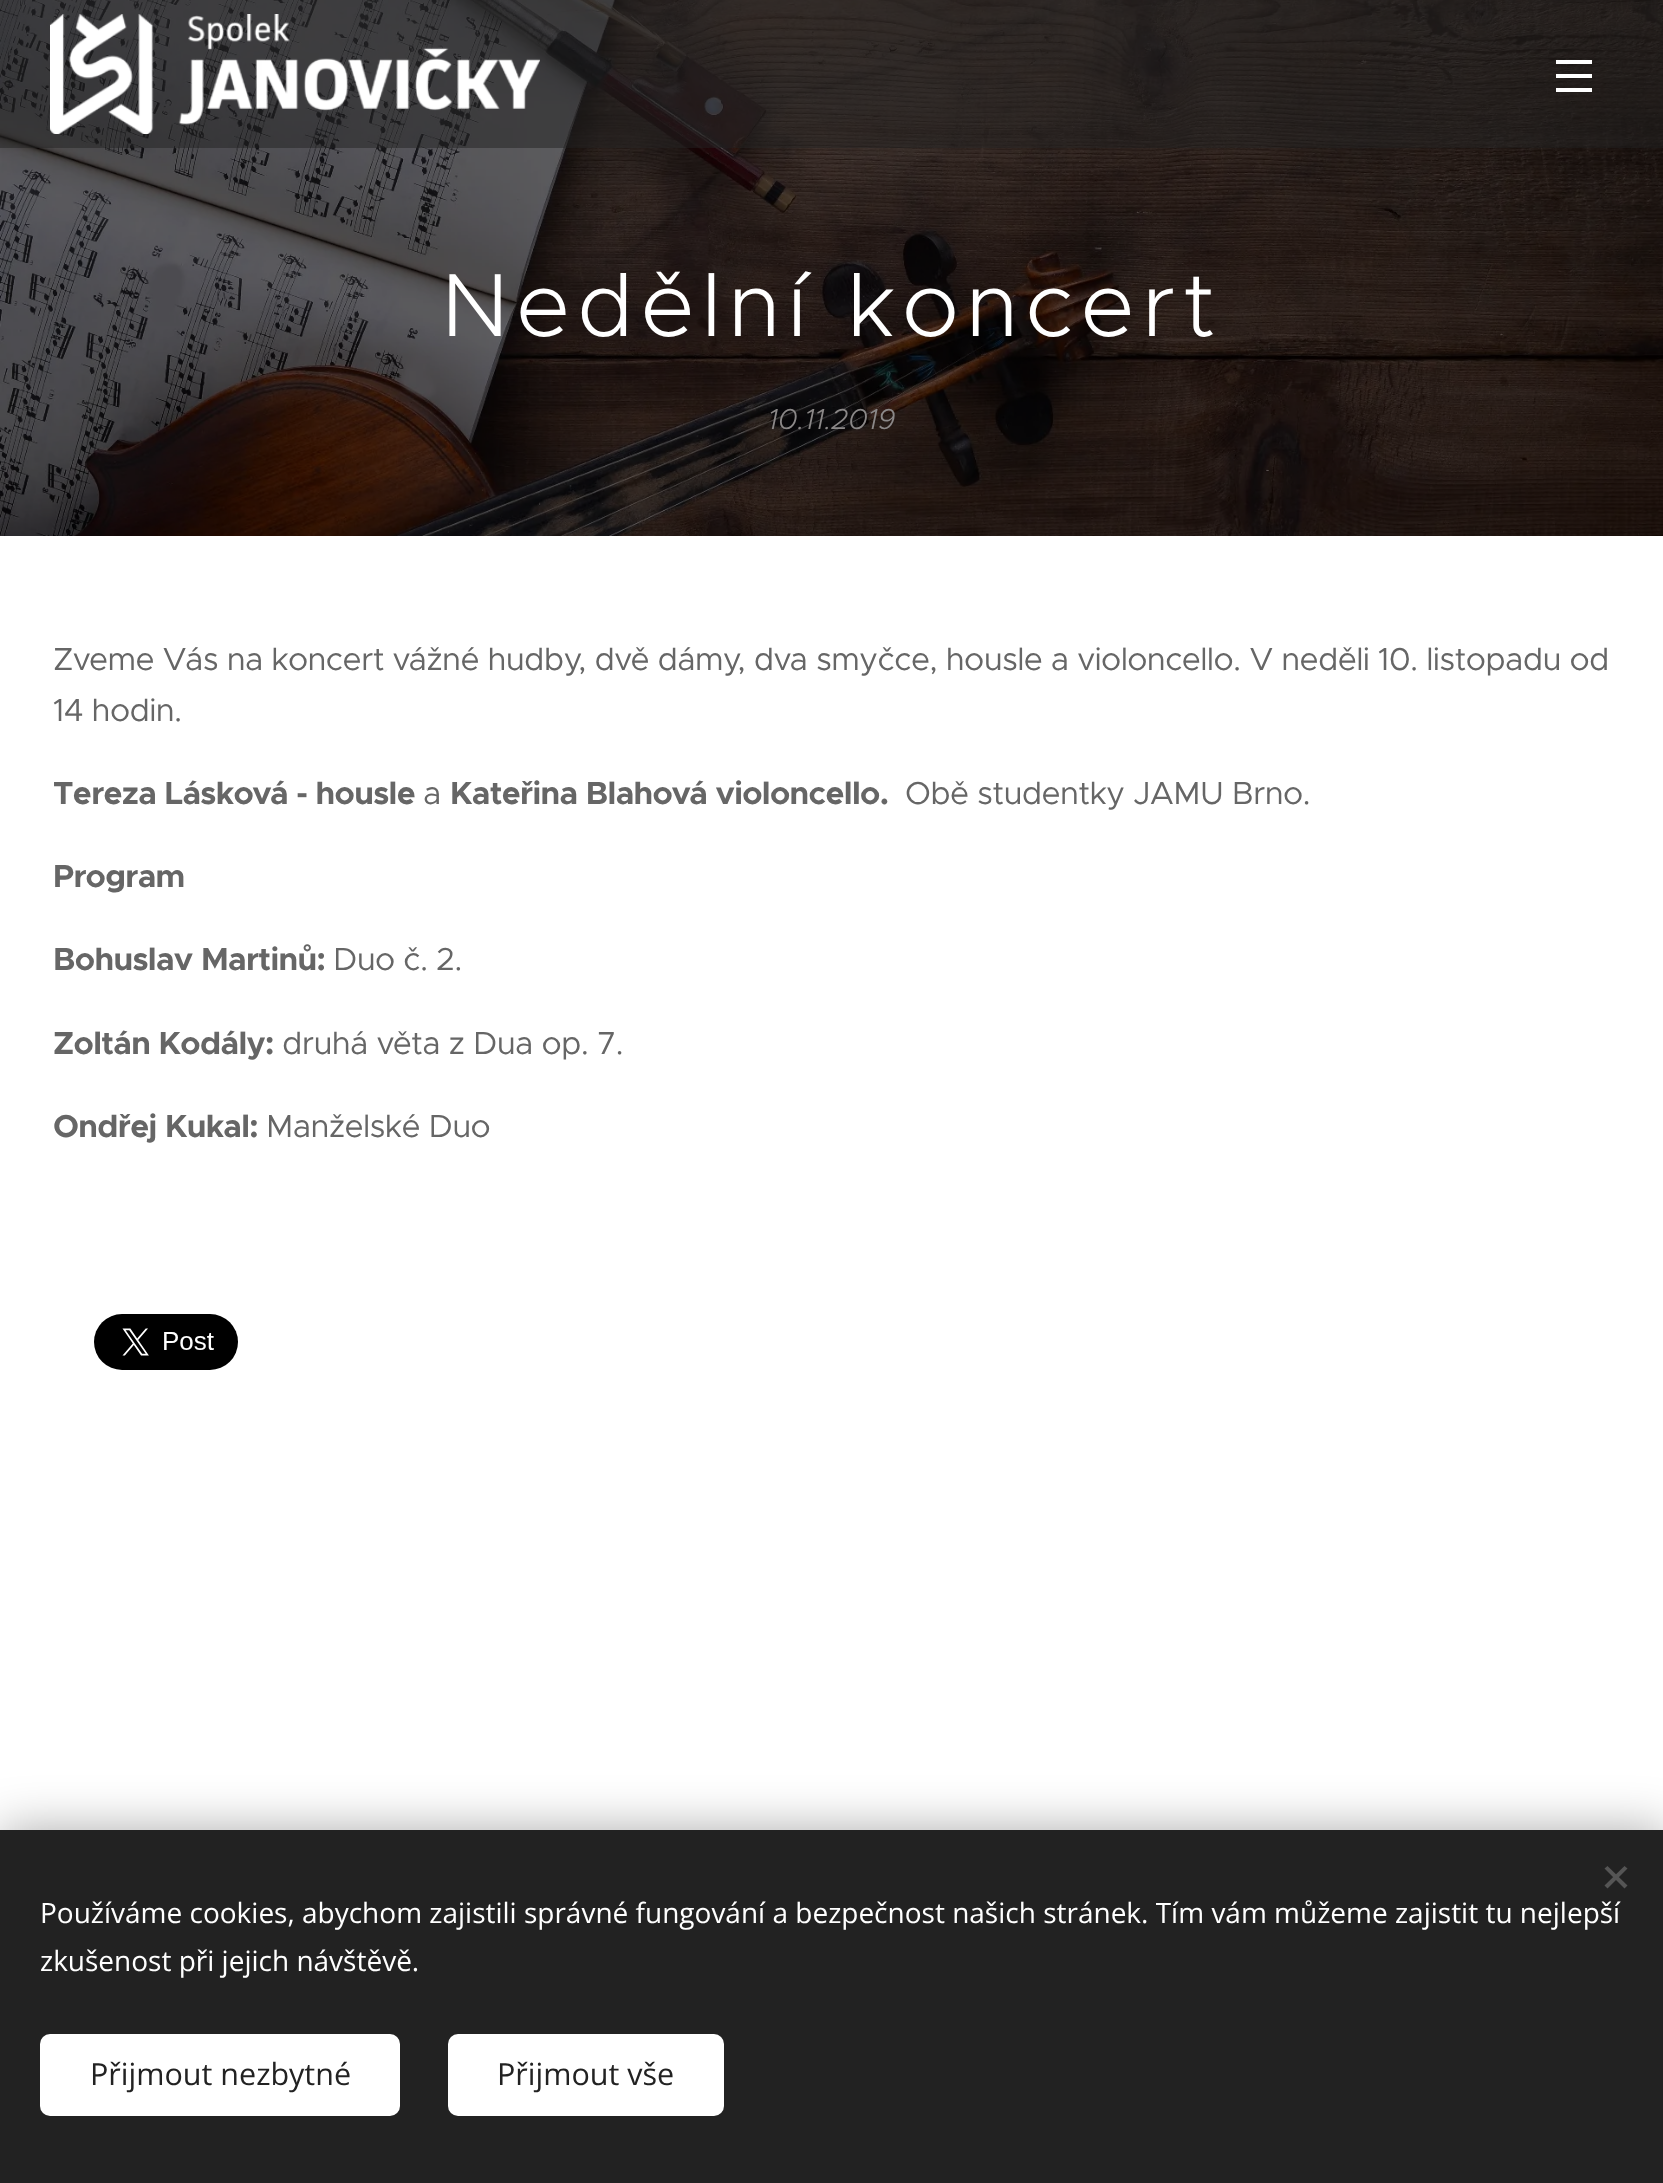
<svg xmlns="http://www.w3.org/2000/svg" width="1663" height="2183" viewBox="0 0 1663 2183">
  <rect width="100%" height="100%" fill="#fff"/>
  <image x="0" y="0" width="1663" height="536" href="img/2.png"/>
  <path d="M0 0h1663v148H0z" fill="#22222280"/>
  <image x="50" y="14" width="490" height="120" href="img/1.png"/>
  <path d="M1556 74h36v4H1556z" fill="#fff"/>
  <path d="M1556 60h36v4H1556z" fill="#fff"/>
  <path d="M1556 88h36v4H1556z" fill="#fff"/>
  <image x="94" y="1314" width="144" height="56" href="img/3.png"/>
  <path d="M0 1830h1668v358H0z" fill="#00000054" filter="blur(25px)"/>
  <path d="M0 1830h1663v353H0z" fill="#222"/>
  <path d="M1604.5 1885.5L1624.5 1866L1627.5 1868.5L1607.5 1888.5Z" fill="#555"/>
  <path d="M1607.5 1866L1627.5 1885.5L1624.5 1888.5L1604.5 1868.5Z" fill="#555"/>
  <rect x="40" y="2034" width="360" height="82" rx="10" fill="#fff"/>
  <rect x="448" y="2034" width="276" height="82" rx="10" fill="#fff"/>
  <text x="441" y="336" font-family="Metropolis" font-size="90" font-weight="300" letter-spacing="7.25" fill="#fff">Nedělní koncert</text>
  <text x="768" y="429" font-family="Metropolis" font-size="29" font-weight="300" font-style="italic" fill="#8b8888">10.11.2019</text>
  <g font-family="Metropolis" font-size="32" letter-spacing="-0.64" fill="#666">
    <text x="53" y="670">Zveme Vás na koncert vážné hudby, dvě dámy, dva smyčce, housle a violoncello. V neděli 10. listopadu od</text>
    <text x="53" y="721">14 hodin.</text>
  </g>
  <text x="53" y="804" font-family="Metropolis" font-size="32" font-weight="bold" letter-spacing="-0.64" fill="#666">Tereza Lásková - housle</text>
  <text x="423" y="804" font-family="Metropolis" font-size="32" letter-spacing="-0.64" fill="#666">a</text>
  <text x="450" y="804" font-family="Metropolis" font-size="32" font-weight="bold" letter-spacing="-0.64" fill="#666">Kateřina Blahová violoncello.</text>
  <text x="905" y="804" font-family="Metropolis" font-size="32" letter-spacing="-0.64" fill="#666">Obě studentky JAMU Brno.</text>
  <g font-family="Metropolis" font-size="32" font-weight="bold" letter-spacing="-0.64" fill="#666">
    <text x="53" y="887">Program</text>
    <text x="53" y="970">Bohuslav Martinů:</text>
  </g>
  <text x="333" y="970" font-family="Metropolis" font-size="32" letter-spacing="-0.64" fill="#666">Duo č. 2.</text>
  <text x="53" y="1054" font-family="Metropolis" font-size="32" font-weight="bold" letter-spacing="-0.64" fill="#666">Zoltán Kodály:</text>
  <text x="282" y="1054" font-family="Metropolis" font-size="32" letter-spacing="-0.64" fill="#666">druhá věta z Dua op. 7.</text>
  <text x="53" y="1137" font-family="Metropolis" font-size="32" font-weight="bold" letter-spacing="-0.64" fill="#666">Ondřej Kukal:</text>
  <text x="266" y="1137" font-family="Metropolis" font-size="32" letter-spacing="-0.64" fill="#666">Manželské Duo</text>
  <g font-family="Open Sans" font-size="28" fill="#fff">
    <text x="40" y="1923">Používáme cookies, abychom zajistili správné fungování a bezpečnost našich stránek. Tím vám můžeme zajistit tu nejlepší</text>
    <text x="40" y="1971">zkušenost při jejich návštěvě.</text>
  </g>
  <g font-family="Open Sans" font-size="30.5" fill="#222">
    <text x="90" y="2085">Přijmout nezbytné</text>
    <text x="497" y="2085">Přijmout vše</text>
  </g>
</svg>
